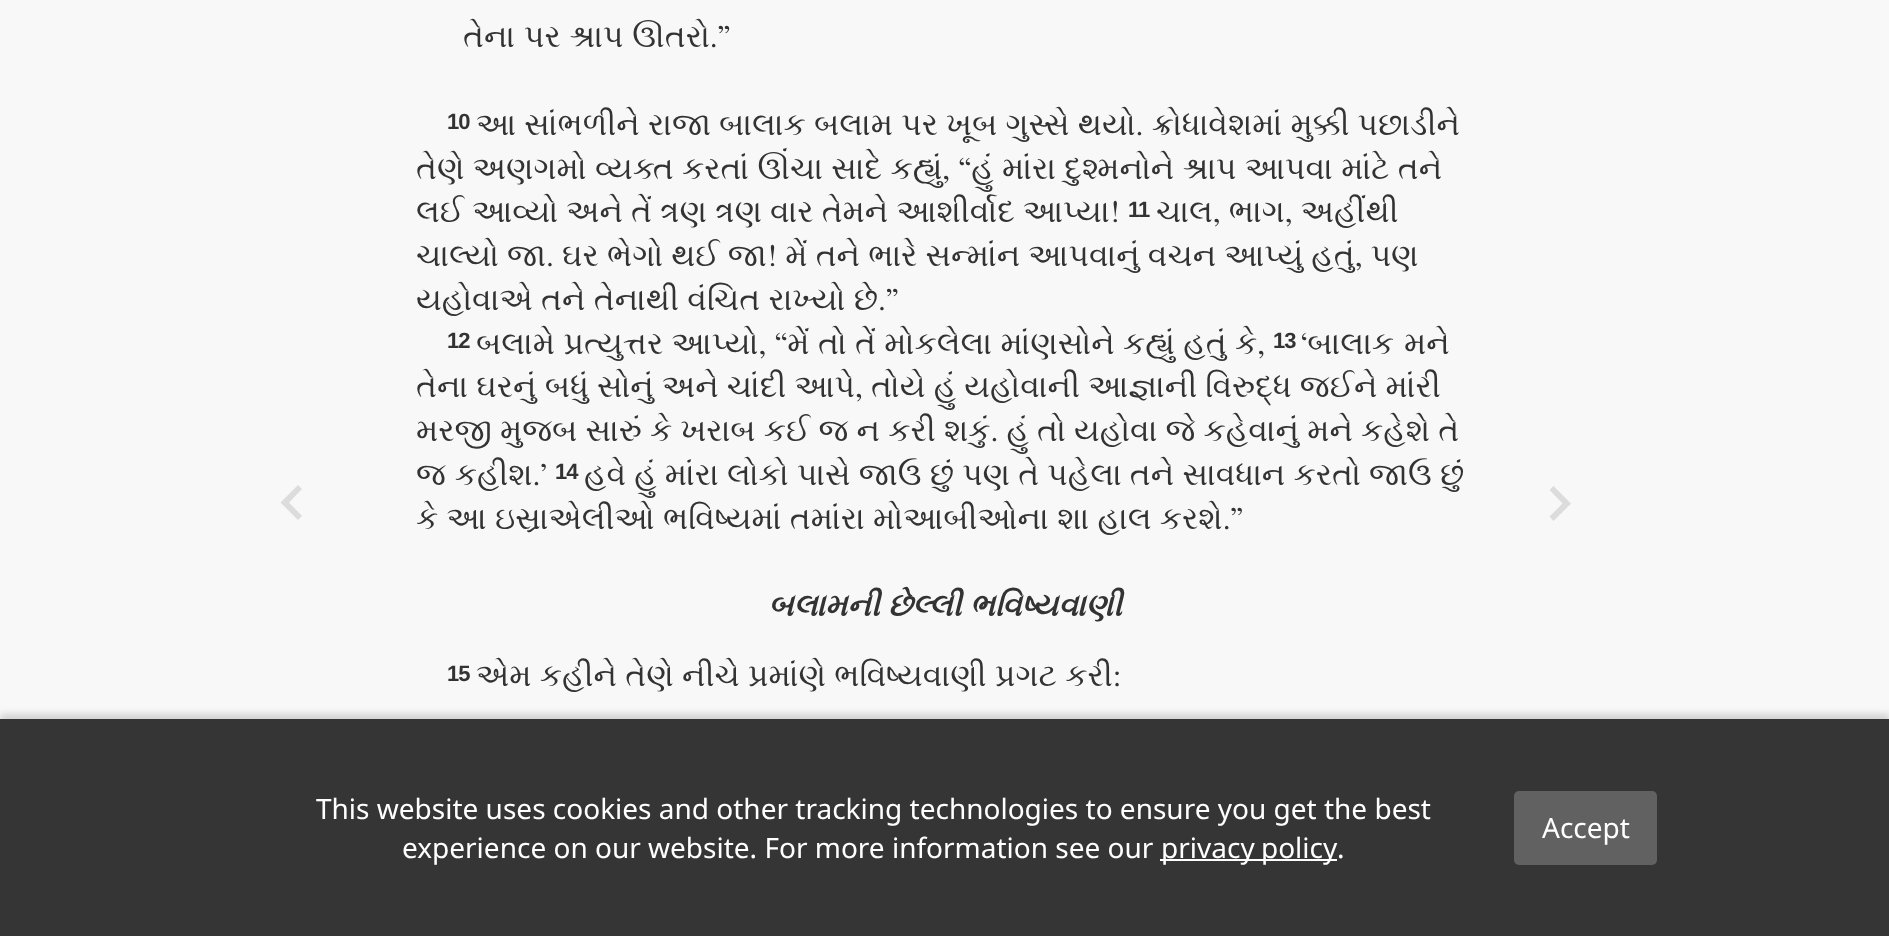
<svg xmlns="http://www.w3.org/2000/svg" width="1889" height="936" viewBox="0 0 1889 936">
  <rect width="100%" height="100%" fill="#f8f8f8"/>
  <path d="M302 516L289 502.5L302 489L298 485L280.5 502.5L298 520Z" fill="#dcdcdc"/>
  <path d="M1549.5 516.5L1562.5 503.5L1549.5 490L1553.5 486L1571 503.5L1553.5 521Z" fill="#dcdcdc"/>
  <path d="M0 714h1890v217H0z" fill="#00000026" filter="blur(3.5px)"/>
  <path d="M0 719h1889v217H0z" fill="#353535"/>
  <path d="M1160 859h177v2H1160z" fill="#fff"/>
  <rect x="1514" y="791" width="143" height="74" rx="5" fill="#616161"/>
  <text x="463" y="47" word-spacing="1" font-family="FreeSerif" font-size="31.5" fill="#333">તેના પર શ્રાપ ઊતરો.”</text>
  <text x="447" y="129" font-family="Liberation Sans" font-size="22" font-weight="bold" letter-spacing="-1" fill="#333">10</text>
  <g font-family="FreeSerif" font-size="31.5" fill="#333">
    <text x="476" y="135" word-spacing="0.3">આ સાંભળીને રાજા બાલાક બલામ પર ખૂબ ગુસ્સે થયો. ક્રોધાવેશમાં મુક્કી પછાડીને</text>
    <text x="416" y="179" word-spacing="0.5">તેણે અણગમો વ્યક્ત કરતાં ઊંચા સાદે કહ્યું, “હું માંરા દુશ્મનોને શ્રાપ આપવા માંટે તને</text>
    <text x="416" y="222" word-spacing="0.25">લઈ આવ્યો અને તેં ત્રણ ત્રણ વાર તેમને આશીર્વાદ આપ્યા!</text>
  </g>
  <text x="1128" y="217" font-family="Liberation Sans" font-size="22" font-weight="bold" letter-spacing="-1" fill="#333">11</text>
  <g font-family="FreeSerif" font-size="31.5" fill="#333">
    <text x="1156" y="222" word-spacing="0.3">ચાલ, ભાગ, અહીંથી</text>
    <text x="416" y="266" word-spacing="0.25">ચાલ્યો જા. ઘર ભેગો થઈ જા! મેં તને ભારે સન્માંન આપવાનું વચન આપ્યું હતું, પણ</text>
    <text x="416" y="310" word-spacing="0.5">યહોવાએ તને તેનાથી વંચિત રાખ્યો છે.”</text>
  </g>
  <text x="447" y="348" font-family="Liberation Sans" font-size="22" font-weight="bold" letter-spacing="-1" fill="#333">12</text>
  <text x="476" y="354" word-spacing="0.5" font-family="FreeSerif" font-size="31.5" fill="#333">બલામે પ્રત્યુત્તર આપ્યો, “મેં તો તેં મોકલેલા માંણસોને કહ્યું હતું કે,</text>
  <text x="1273" y="348" font-family="Liberation Sans" font-size="22" font-weight="bold" letter-spacing="-1" fill="#333">13</text>
  <g font-family="FreeSerif" font-size="31.5" fill="#333">
    <text x="1301" y="354" word-spacing="2">‘બાલાક મને</text>
    <text x="416" y="397" word-spacing="0.25">તેના ઘરનું બધું સોનું અને ચાંદી આપે, તોયે હું યહોવાની આજ્ઞાની વિરુદ્ધ જઈને માંરી</text>
    <text x="416" y="441" word-spacing="0.3">મરજી મુજબ સારું કે ખરાબ કઈ જ ન કરી શકું. હું તો યહોવા જે કહેવાનું મને કહેશે તે</text>
    <text x="416" y="485" word-spacing="1">જ કહીશ.’</text>
  </g>
  <text x="555" y="479" font-family="Liberation Sans" font-size="22" font-weight="bold" letter-spacing="-1" fill="#333">14</text>
  <g font-family="FreeSerif" font-size="31.5" fill="#333">
    <text x="584" y="485" word-spacing="0.3">હવે હું માંરા લોકો પાસે જાઉ છું પણ તે પહેલા તને સાવધાન કરતો જાઉ છું</text>
    <text x="416" y="529" word-spacing="0.5">કે આ ઇસ્રાએલીઓ ભવિષ્યમાં તમાંરા મોઆબીઓના શા હાલ કરશે.”</text>
  </g>
  <text x="768" y="616" word-spacing="0.3" font-family="FreeSerif" font-size="31.5" font-weight="bold" font-style="italic" fill="#333">બલામની છેલ્લી ભવિષ્યવાણી</text>
  <text x="447" y="681" font-family="Liberation Sans" font-size="22" font-weight="bold" letter-spacing="-1" fill="#333">15</text>
  <text x="476" y="686" word-spacing="0.5" font-family="FreeSerif" font-size="31.5" fill="#333">એમ કહીને તેણે નીચે પ્રમાંણે ભવિષ્યવાણી પ્રગટ કરી:</text>
  <g font-family="Noto Sans" font-size="28" fill="#fff">
    <text x="316" y="819">This website uses cookies and other tracking technologies to ensure you get the best</text>
    <text x="402" y="858">experience on our website. For more information see our</text>
    <text x="1161" y="858" word-spacing="-1">privacy policy</text>
    <text x="1337" y="858">.</text>
    <text x="1542" y="838">Accept</text>
  </g>
</svg>
